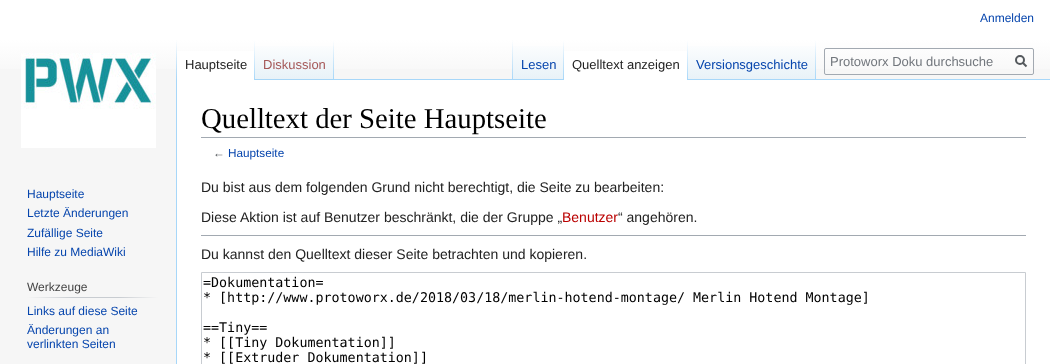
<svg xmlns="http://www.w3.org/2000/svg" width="1050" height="364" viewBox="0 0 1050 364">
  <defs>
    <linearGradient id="g1" gradientUnits="userSpaceOnUse" x1="525" y1="0" x2="525" y2="80"><stop offset="0.5" stop-color="#fff"/><stop offset="1" stop-color="#f6f6f6"/></linearGradient>
    <linearGradient id="g2" gradientUnits="userSpaceOnUse" x1="177" y1="40" x2="177" y2="80"><stop offset="0" stop-color="#a7d7f9" stop-opacity="0"/><stop offset="1" stop-color="#a7d7f9"/></linearGradient>
    <linearGradient id="g3" gradientUnits="userSpaceOnUse" x1="255" y1="40" x2="255" y2="80"><stop offset="0" stop-color="#fff"/><stop offset="1" stop-color="#a7d7f9"/></linearGradient>
    <linearGradient id="g4" gradientUnits="userSpaceOnUse" x1="295" y1="80" x2="295" y2="40"><stop offset="0" stop-color="#77c1f6"/><stop offset="0.03" stop-color="#e8f2f8"/><stop offset="1" stop-color="#fff"/></linearGradient>
    <linearGradient id="g5" gradientUnits="userSpaceOnUse" x1="334" y1="40" x2="334" y2="80"><stop offset="0" stop-color="#a7d7f9" stop-opacity="0"/><stop offset="1" stop-color="#a7d7f9"/></linearGradient>
    <linearGradient id="g6" gradientUnits="userSpaceOnUse" x1="513" y1="40" x2="513" y2="80"><stop offset="0" stop-color="#a7d7f9" stop-opacity="0"/><stop offset="1" stop-color="#a7d7f9"/></linearGradient>
    <linearGradient id="g7" gradientUnits="userSpaceOnUse" x1="539" y1="80" x2="539" y2="40"><stop offset="0" stop-color="#77c1f6"/><stop offset="0.03" stop-color="#e8f2f8"/><stop offset="1" stop-color="#fff"/></linearGradient>
    <linearGradient id="g8" gradientUnits="userSpaceOnUse" x1="564" y1="40" x2="564" y2="80"><stop offset="0" stop-color="#a7d7f9" stop-opacity="0"/><stop offset="1" stop-color="#a7d7f9"/></linearGradient>
    <linearGradient id="g9" gradientUnits="userSpaceOnUse" x1="688" y1="40" x2="688" y2="80"><stop offset="0" stop-color="#fff"/><stop offset="1" stop-color="#a7d7f9"/></linearGradient>
    <linearGradient id="g10" gradientUnits="userSpaceOnUse" x1="752" y1="80" x2="752" y2="40"><stop offset="0" stop-color="#77c1f6"/><stop offset="0.03" stop-color="#e8f2f8"/><stop offset="1" stop-color="#fff"/></linearGradient>
    <linearGradient id="g11" gradientUnits="userSpaceOnUse" x1="816" y1="40" x2="816" y2="80"><stop offset="0" stop-color="#a7d7f9" stop-opacity="0"/><stop offset="1" stop-color="#a7d7f9"/></linearGradient>
    <linearGradient id="g12" gradientUnits="userSpaceOnUse" x1="27" y1="298" x2="158" y2="298"><stop offset="0" stop-color="#f6f6f6"/><stop offset="0.35" stop-color="#c8ccd1"/><stop offset="0.7" stop-color="#c8ccd1"/><stop offset="1" stop-color="#f6f6f6"/></linearGradient>
  </defs>
  <rect width="100%" height="100%" fill="#f6f6f6"/>
  <path d="M0 0h1050v69H0z" fill="url(#g1)"/>
  <path d="M176 79h1v285H176z" fill="#a7d7f9"/>
  <path d="M176 40h1v40H176z" fill="url(#g2)"/>
  <path d="M177 51h77v29H177z" fill="#fff"/>
  <path d="M254 40h1v40H254z" fill="url(#g3)"/>
  <path d="M255 46h79v34H255z" fill="url(#g4)"/>
  <path d="M333 40h1v40H333z" fill="url(#g5)"/>
  <path d="M334 79h716v1H334z" fill="#a7d7f9"/>
  <path d="M512 40h1v40H512z" fill="url(#g6)"/>
  <path d="M513 46h51v33H513z" fill="url(#g7)"/>
  <path d="M563 40h1v40H563z" fill="url(#g8)"/>
  <path d="M564 51h123v29H564z" fill="#fff"/>
  <path d="M687 40h1v40H687z" fill="url(#g9)"/>
  <path d="M688 46h128v33H688z" fill="url(#g10)"/>
  <path d="M815 40h1v40H815z" fill="url(#g11)"/>
  <rect x="824.5" y="48.5" width="209" height="26" rx="1.5" fill="none" stroke="#a2a9b1"/>
  <path d="M1026.5 66.5L1022.5 62.5" fill="none" stroke="#54595d" stroke-width="2"/>
  <circle cx="1020" cy="60" r="4" fill="none" stroke="#54595d" stroke-width="2"/>
  <image x="21" y="53" width="135" height="95" href="img/1.png"/>
  <path d="M27 297h131v1H27z" fill="url(#g12)"/>
  <path d="M177 80h873v284H177z" fill="#fff"/>
  <path d="M201 137h825v1H201z" fill="#a2a9b1"/>
  <path d="M201 235h825v1H201z" fill="#a2a9b1"/>
  <path d="M201.5 272.5h824v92H201.5z" fill="none" stroke="#c8ccd1"/>
  <text x="980" y="22" font-family="Liberation Sans" font-size="12" fill="#0645ad">Anmelden</text>
  <text x="185" y="69" font-family="Liberation Sans" font-size="13" fill="#222">Hauptseite</text>
  <text x="263" y="69" font-family="Liberation Sans" font-size="13" fill="#a55858">Diskussion</text>
  <text x="521" y="69" font-family="Liberation Sans" font-size="13" fill="#0645ad">Lesen</text>
  <text x="572" y="69" font-family="Liberation Sans" font-size="13" fill="#222">Quelltext anzeigen</text>
  <text x="696" y="69" font-family="Liberation Sans" font-size="13" fill="#0645ad">Versionsgeschichte</text>
  <text x="830" y="66" font-family="Liberation Sans" font-size="13" fill="#72777d">Protoworx Doku durchsuche</text>
  <g font-family="Liberation Sans" font-size="12" fill="#0645ad">
    <text x="27" y="198">Hauptseite</text>
    <text x="27" y="217">Letzte Änderungen</text>
    <text x="27" y="237">Zufällige Seite</text>
    <text x="27" y="256">Hilfe zu MediaWiki</text>
  </g>
  <text x="27" y="291" font-family="Liberation Sans" font-size="12" fill="#444">Werkzeuge</text>
  <g font-family="Liberation Sans" font-size="12" fill="#0645ad">
    <text x="27" y="315">Links auf diese Seite</text>
    <text x="27" y="334">Änderungen an</text>
    <text x="27" y="348">verlinkten Seiten</text>
  </g>
  <text x="201" y="128" font-family="Liberation Serif" font-size="28.75" fill="#000">Quelltext der Seite Hauptseite</text>
  <text x="213" y="157" font-family="Liberation Sans" font-size="11.75" fill="#54595d">←</text>
  <text x="228" y="157" font-family="Liberation Sans" font-size="11.75" fill="#0645ad">Hauptseite</text>
  <g font-family="Liberation Sans" font-size="14" fill="#222">
    <text x="201" y="192">Du bist aus dem folgenden Grund nicht berechtigt, die Seite zu bearbeiten:</text>
    <text x="201" y="222">Diese Aktion ist auf Benutzer beschränkt, die der Gruppe „</text>
  </g>
  <text x="562" y="222" font-family="Liberation Sans" font-size="14" fill="#ba0000">Benutzer</text>
  <g font-family="Liberation Sans" font-size="14" fill="#222">
    <text x="618" y="222">“ angehören.</text>
    <text x="201" y="259">Du kannst den Quelltext dieser Seite betrachten und kopieren.</text>
  </g>
  <g font-family="DejaVu Sans Mono" font-size="13.35" fill="#000">
    <text x="203" y="287">=Dokumentation=</text>
    <text x="203" y="302">* [http://www.protoworx.de/2018/03/18/merlin-hotend-montage/ Merlin Hotend Montage]</text>
    <text x="203" y="332">==Tiny==</text>
    <text x="203" y="347">* [[Tiny Dokumentation]]</text>
    <text x="203" y="362">* [[Extruder Dokumentation]]</text>
  </g>
</svg>
